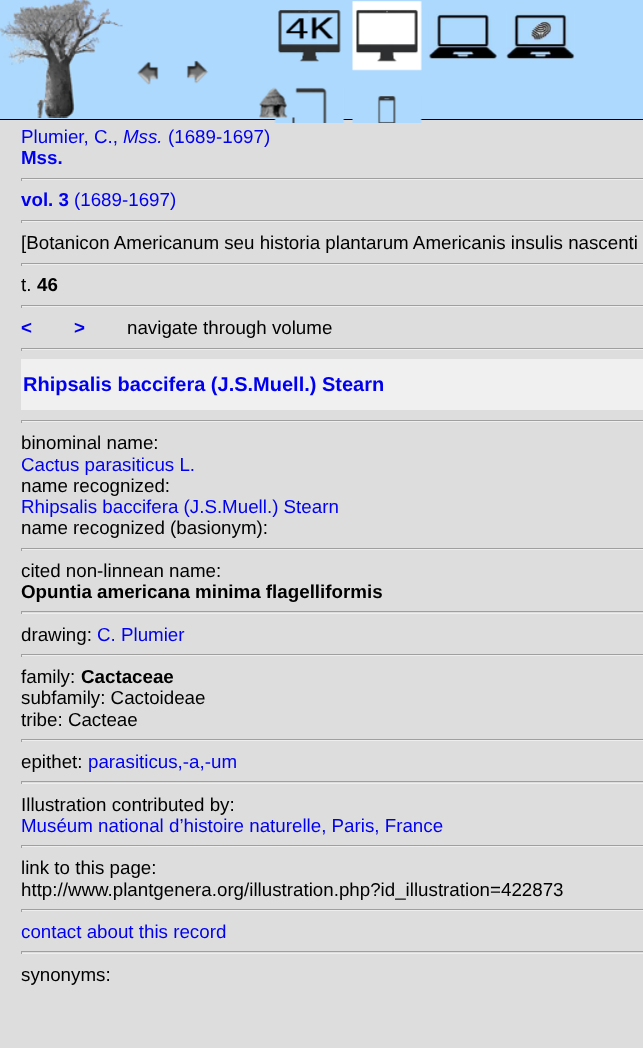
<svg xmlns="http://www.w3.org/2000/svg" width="643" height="1048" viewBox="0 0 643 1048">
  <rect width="100%" height="100%" fill="#ddd"/>
  <path d="M0 0h643v119H0z" fill="#add9fe"/>
  <path d="M0 119h643v1H0z" fill="#000"/>
  <image x="0" y="0" width="123" height="118" href="img/1.png"/>
  <image x="137" y="61" width="22" height="24" href="img/2.png"/>
  <image x="186" y="60" width="23" height="24" href="img/3.png"/>
  <image x="278" y="10" width="63" height="52" href="img/4.png"/>
  <image x="352" y="1" width="70" height="70" href="img/5.png"/>
  <image x="428" y="11" width="70" height="49" href="img/6.png"/>
  <image x="506" y="11" width="69" height="49" href="img/7.png"/>
  <image x="274" y="87" width="71" height="36" href="img/8.png"/>
  <image x="352" y="95" width="70" height="28" href="img/9.png"/>
  <image x="259" y="87" width="38" height="31" href="img/10.png"/>
  <path d="M21 178h622v1H21z" fill="#9f9f9f"/>
  <path d="M21 179h622v1H21z" fill="#eee"/>
  <path d="M21 178h1v3H21z" fill="#9f9f9f"/>
  <path d="M21 220h622v1H21z" fill="#9f9f9f"/>
  <path d="M21 221h622v1H21z" fill="#eee"/>
  <path d="M21 220h1v3H21z" fill="#9f9f9f"/>
  <path d="M21 263h622v1H21z" fill="#9f9f9f"/>
  <path d="M21 264h622v1H21z" fill="#eee"/>
  <path d="M21 263h1v3H21z" fill="#9f9f9f"/>
  <path d="M21 305h622v1H21z" fill="#9f9f9f"/>
  <path d="M21 306h622v1H21z" fill="#eee"/>
  <path d="M21 305h1v3H21z" fill="#9f9f9f"/>
  <path d="M21 348h622v1H21z" fill="#9f9f9f"/>
  <path d="M21 349h622v1H21z" fill="#eee"/>
  <path d="M21 348h1v3H21z" fill="#9f9f9f"/>
  <path d="M21 359h622v51H21z" fill="#f0f0f0"/>
  <path d="M21 420h622v1H21z" fill="#9f9f9f"/>
  <path d="M21 421h622v1H21z" fill="#eee"/>
  <path d="M21 420h1v3H21z" fill="#9f9f9f"/>
  <path d="M21 548h622v1H21z" fill="#9f9f9f"/>
  <path d="M21 549h622v1H21z" fill="#eee"/>
  <path d="M21 548h1v3H21z" fill="#9f9f9f"/>
  <path d="M21 611h622v1H21z" fill="#9f9f9f"/>
  <path d="M21 613h622v1H21z" fill="#eee"/>
  <path d="M21 611h1v3H21z" fill="#9f9f9f"/>
  <path d="M21 654h622v1H21z" fill="#9f9f9f"/>
  <path d="M21 655h622v1H21z" fill="#eee"/>
  <path d="M21 654h1v3H21z" fill="#9f9f9f"/>
  <path d="M21 739h622v1H21z" fill="#9f9f9f"/>
  <path d="M21 740h622v1H21z" fill="#eee"/>
  <path d="M21 739h1v3H21z" fill="#9f9f9f"/>
  <path d="M21 781h622v1H21z" fill="#9f9f9f"/>
  <path d="M21 783h622v1H21z" fill="#eee"/>
  <path d="M21 781h1v3H21z" fill="#9f9f9f"/>
  <path d="M21 845h622v1H21z" fill="#9f9f9f"/>
  <path d="M21 846h622v1H21z" fill="#eee"/>
  <path d="M21 845h1v3H21z" fill="#9f9f9f"/>
  <path d="M21 909h622v1H21z" fill="#9f9f9f"/>
  <path d="M21 910h622v1H21z" fill="#eee"/>
  <path d="M21 909h1v3H21z" fill="#9f9f9f"/>
  <path d="M21 951h622v1H21z" fill="#9f9f9f"/>
  <path d="M21 953h622v1H21z" fill="#eee"/>
  <path d="M21 951h1v3H21z" fill="#9f9f9f"/>
  <text x="21" y="143" font-family="Liberation Sans" font-size="18.75" fill="#00e">Plumier, C.,</text>
  <text x="123" y="143" font-family="Liberation Sans" font-size="18.75" font-style="italic" fill="#00e">Mss.</text>
  <text x="168" y="143" font-family="Liberation Sans" font-size="18.75" fill="#00e">(1689-1697)</text>
  <g font-family="Liberation Sans" font-size="18.75" font-weight="bold" fill="#00e">
    <text x="21" y="164">Mss.</text>
    <text x="21" y="206">vol. 3</text>
  </g>
  <text x="74" y="206" font-family="Liberation Sans" font-size="18.75" fill="#00e">(1689-1697)</text>
  <g font-family="Liberation Sans" font-size="18.75" fill="#000">
    <text x="21" y="249">[Botanicon Americanum seu historia plantarum Americanis insulis nascenti</text>
    <text x="21" y="291">t.</text>
  </g>
  <text x="37" y="291" font-family="Liberation Sans" font-size="18.75" font-weight="bold" fill="#000">46</text>
  <g font-family="Liberation Sans" font-size="18.75" font-weight="bold" fill="#00e">
    <text x="21" y="334">&lt;</text>
    <text x="74" y="334">&gt;</text>
  </g>
  <text x="127" y="334" font-family="Liberation Sans" font-size="18.75" fill="#000">navigate through volume</text>
  <text x="23" y="391" font-family="Liberation Sans" font-size="20" font-weight="bold" fill="#00e">Rhipsalis baccifera (J.S.Muell.) Stearn</text>
  <text x="21" y="449" font-family="Liberation Sans" font-size="18.75" fill="#000">binominal name:</text>
  <text x="21" y="471" font-family="Liberation Sans" font-size="18.75" fill="#00e">Cactus parasiticus L.</text>
  <text x="21" y="492" font-family="Liberation Sans" font-size="18.75" fill="#000">name recognized:</text>
  <text x="21" y="513" font-family="Liberation Sans" font-size="18.75" fill="#00e">Rhipsalis baccifera (J.S.Muell.) Stearn</text>
  <g font-family="Liberation Sans" font-size="18.75" fill="#000">
    <text x="21" y="534">name recognized (basionym):</text>
    <text x="21" y="577">cited non-linnean name:</text>
  </g>
  <text x="21" y="598" font-family="Liberation Sans" font-size="18.75" font-weight="bold" fill="#000">Opuntia americana minima flagelliformis</text>
  <text x="21" y="641" font-family="Liberation Sans" font-size="18.75" fill="#000">drawing:</text>
  <text x="97" y="641" font-family="Liberation Sans" font-size="18.75" fill="#00e">C. Plumier</text>
  <text x="21" y="683" font-family="Liberation Sans" font-size="18.75" fill="#000">family:</text>
  <text x="81" y="683" font-family="Liberation Sans" font-size="18.75" font-weight="bold" fill="#000">Cactaceae</text>
  <g font-family="Liberation Sans" font-size="18.75" fill="#000">
    <text x="21" y="704">subfamily: Cactoideae</text>
    <text x="21" y="726">tribe: Cacteae</text>
    <text x="21" y="768">epithet:</text>
  </g>
  <text x="88" y="768" font-family="Liberation Sans" font-size="18.75" fill="#00e">parasiticus,-a,-um</text>
  <text x="21" y="811" font-family="Liberation Sans" font-size="18.75" fill="#000">Illustration contributed by:</text>
  <text x="21" y="832" font-family="Liberation Sans" font-size="18.75" fill="#00e">Muséum national d’histoire naturelle, Paris, France</text>
  <g font-family="Liberation Sans" font-size="18.75" fill="#000">
    <text x="21" y="874">link to this page:</text>
    <text x="21" y="896">http://www.plantgenera.org/illustration.php?id_illustration=422873</text>
  </g>
  <text x="21" y="938" font-family="Liberation Sans" font-size="18.75" fill="#00e">contact about this record</text>
  <text x="21" y="981" font-family="Liberation Sans" font-size="18.75" fill="#000">synonyms:</text>
</svg>
